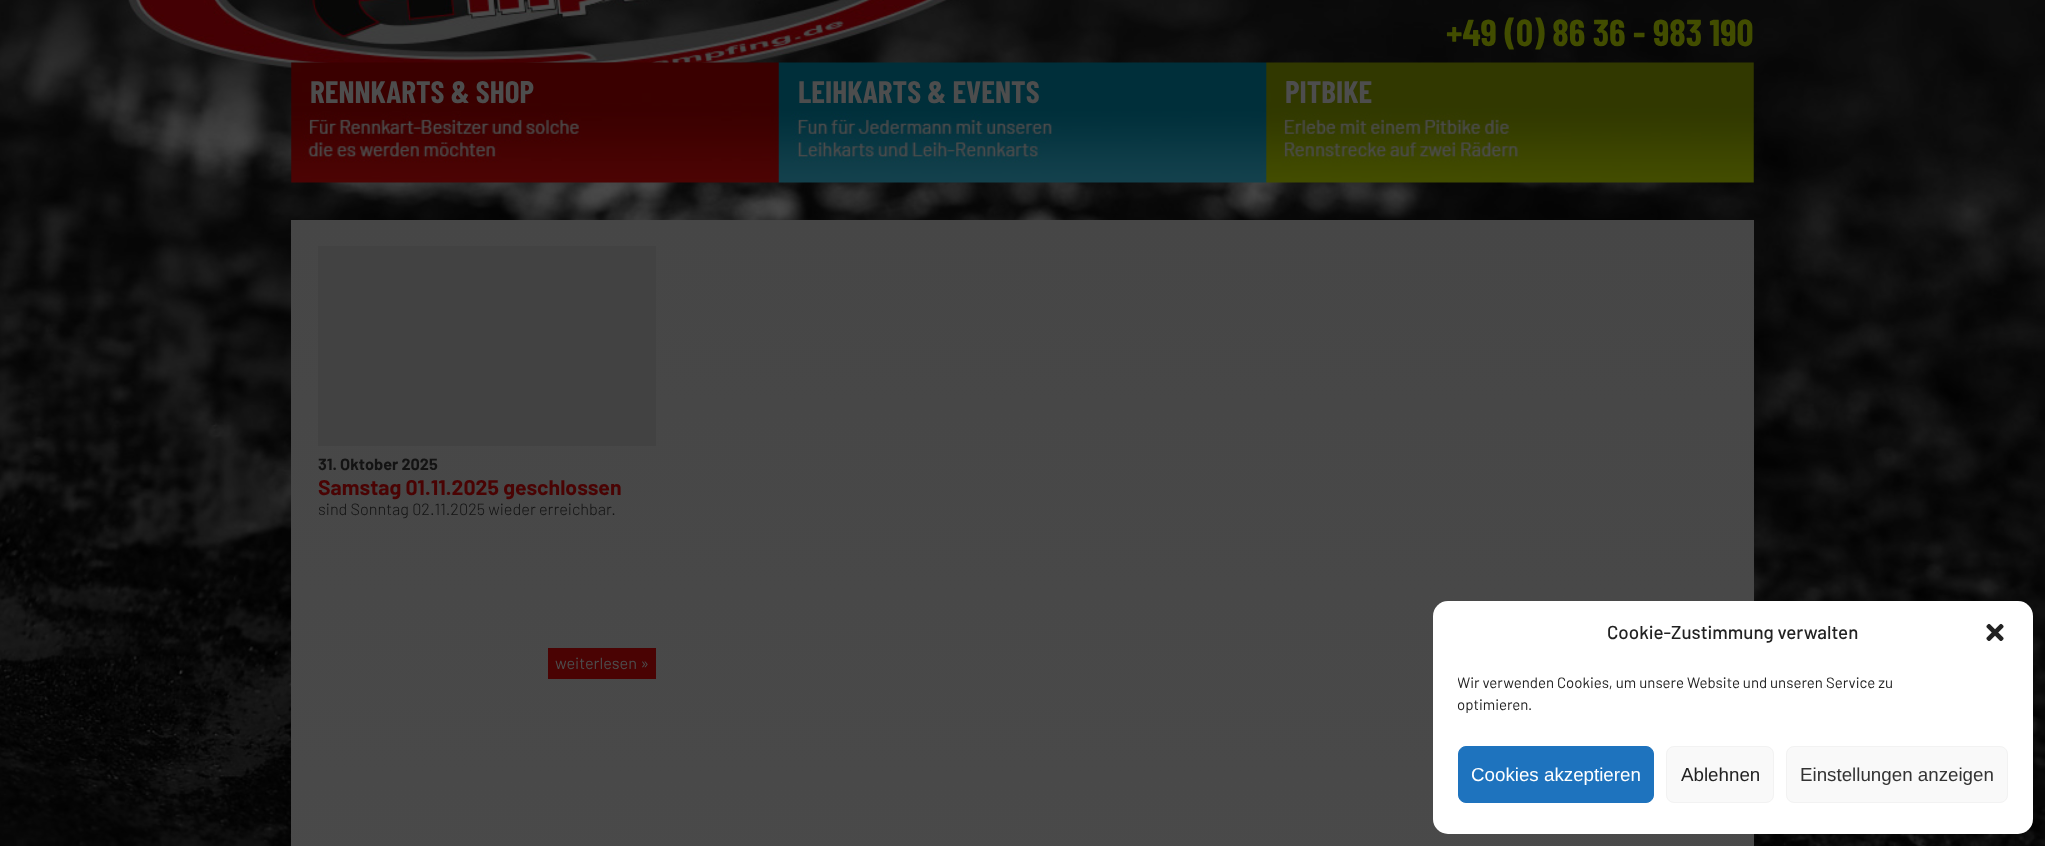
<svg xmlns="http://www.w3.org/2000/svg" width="2045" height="846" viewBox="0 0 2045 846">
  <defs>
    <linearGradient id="g1" gradientUnits="userSpaceOnUse" x1="1022" y1="220" x2="1023" y2="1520"><stop offset="0" stop-color="#464646"/><stop offset="1" stop-color="#4d4d4d"/></linearGradient>
    <clipPath id="clip1"><path d="M1458 670h550v51H1458z"/></clipPath>
  </defs>
  <rect width="100%" height="100%" fill="#fff"/>
  <image x="0" y="0" width="2045" height="846" href="img/1.png"/>
  <image x="291" y="62" width="1463" height="121" href="img/2.png"/>
  <path d="M291 220h1463v626H291z" fill="url(#g1)"/>
  <path d="M318 246h338v200H318z" fill="#424242"/>
  <path d="M548 648h108v31H548z" fill="#4a0303"/>
  <rect x="1433" y="601" width="600" height="233" rx="15" fill="#fff"/>
  <image x="1986" y="623" width="18" height="18" href="img/3.png"/>
  <rect x="1458.5" y="746.5" width="195" height="56" rx="7.5" fill="#1e73be" stroke="#1e73be"/>
  <rect x="1666.5" y="746.5" width="107" height="56" rx="7.5" fill="#f9f9f9" stroke="#f2f2f2"/>
  <rect x="1786.5" y="746.5" width="221" height="56" rx="7.5" fill="#f9f9f9" stroke="#f2f2f2"/>
  <text x="1446" y="46" font-family="Barlow Condensed" font-size="37.5" font-weight="bold" fill="#424d00">+49 (0) 86 36 - 983 190</text>
  <g font-family="Barlow Condensed" font-size="31.25" font-weight="bold" fill="#4d4d4d">
    <text x="310" y="103">RENNKARTS &amp; SHOP</text>
    <text x="798" y="103">LEIHKARTS &amp; EVENTS</text>
    <text x="1285" y="103">PITBIKE</text>
  </g>
  <text x="318" y="470" font-family="Barlow" font-size="16.25" font-weight="bold" fill="#131313">31. Oktober 2025</text>
  <text x="318" y="495" font-family="Barlow" font-size="21.25" font-weight="bold" fill="#4a0303">Samstag 01.11.2025 geschlossen</text>
  <text x="318" y="515" font-family="Barlow" font-size="16.25" font-weight="300" fill="#131313">sind Sonntag 02.11.2025 wieder erreichbar.</text>
  <text x="555" y="669" font-family="Barlow" font-size="16.25" fill="#4d4d4d">weiterlesen »</text>
  <text x="1607" y="639" font-family="Barlow" font-size="18.75" font-weight="500" fill="#222">Cookie-Zustimmung verwalten</text>
  <g clip-path="url(#clip1)">
    <text x="1457" y="688" font-family="Barlow" font-size="15" fill="#222">Wir verwenden Cookies, um unsere Website und unseren Service zu</text>
  </g>
  <text x="1457" y="710" font-family="Barlow" font-size="15" fill="#222">optimieren.</text>
  <text x="1471" y="781" font-family="Liberation Sans" font-size="18.75" fill="#fff">Cookies akzeptieren</text>
  <text x="1681" y="781" font-family="Liberation Sans" font-size="18.75" fill="#222">Ablehnen</text>
  <text x="1800" y="781" font-family="Liberation Sans" font-size="18.75" fill="#333">Einstellungen anzeigen</text>
</svg>
